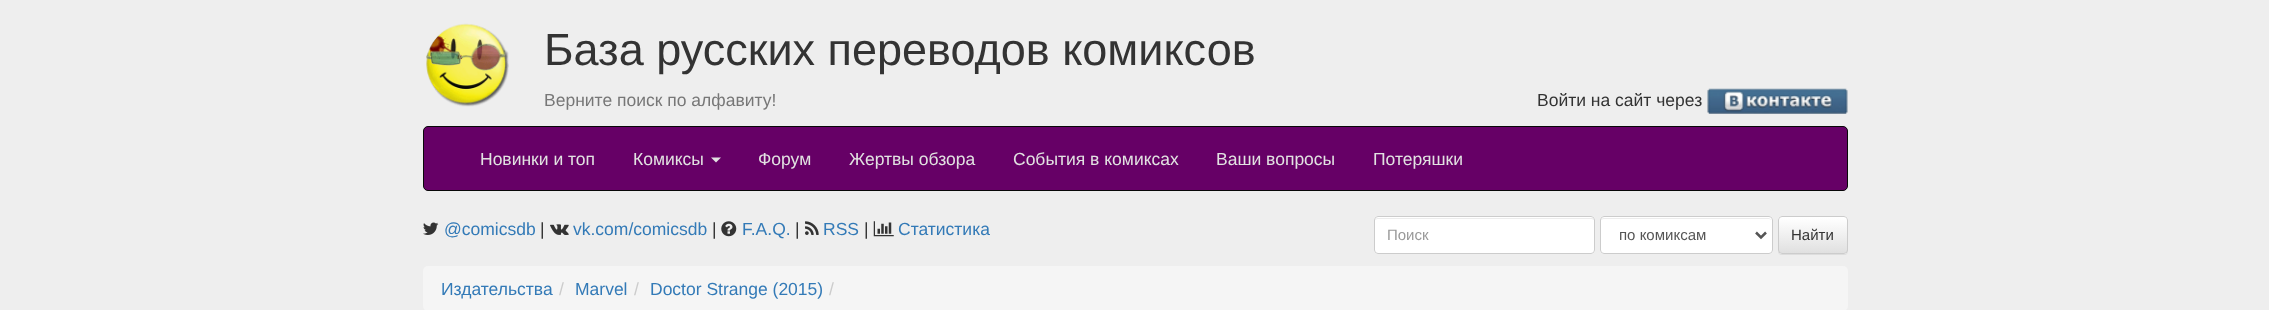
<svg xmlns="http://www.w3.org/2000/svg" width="2269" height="310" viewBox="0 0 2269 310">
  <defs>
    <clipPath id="clip1"><rect x="1778" y="216" width="70" height="38" rx="4"/></clipPath>
    <linearGradient id="g1" gradientUnits="userSpaceOnUse" x1="1813" y1="218" x2="1813" y2="253"><stop offset="0" stop-color="#fff"/><stop offset="1" stop-color="#e0e0e0"/></linearGradient>
  </defs>
  <rect width="100%" height="100%" fill="#eee"/>
  <image x="426" y="23" width="83" height="84" href="img/1.png"/>
  <image x="1707" y="88" width="141" height="26" href="img/2.png"/>
  <rect x="423.5" y="126.5" width="1424" height="64" rx="4.5" fill="#606" stroke="#080808"/>
  <path d="M711 157.5H721L716 162.5Z" fill="#e2e2e2"/>
  <image x="423" y="222" width="16" height="13" href="img/3.png"/>
  <image x="550" y="224" width="19" height="11" href="img/4.png"/>
  <image x="721" y="221" width="16" height="16" href="img/5.png"/>
  <image x="805" y="221" width="14" height="14" href="img/6.png"/>
  <image x="873" y="221" width="21" height="16" href="img/7.png"/>
  <rect x="1374" y="216" width="221" height="38" rx="4" fill="#fff"/>
  <path d="M1378 219H1591C1593 219 1594 220 1594 221C1594 219 1593 218 1592 218H1378C1376 218 1375 219 1375 221C1375 220 1376 219 1378 219Z" fill="#ececec"/>
  <rect x="1374.5" y="216.5" width="220" height="37" rx="3.5" fill="none" stroke="#ccc"/>
  <rect x="1600" y="216" width="173" height="38" rx="4" fill="#fff"/>
  <path d="M1604 219H1769C1770 219 1771 220 1771 221C1771 219 1770 218 1768 218H1604C1602 218 1601 219 1601 221C1601 220 1602 219 1604 219Z" fill="#ececec"/>
  <rect x="1600.5" y="216.5" width="172" height="37" rx="3.5" fill="none" stroke="#ccc"/>
  <path d="M1756 232.5L1761 237.5L1766 232.5" fill="none" stroke="#555" stroke-width="2.5"/>
  <rect x="1778" y="218" width="70" height="37" rx="4" fill="#00000012" filter="blur(0.5px)"/>
  <rect x="1778" y="216" width="70" height="38" rx="4" fill="#fff"/>
  <g clip-path="url(#clip1)">
    <path d="M1778 218h70v35H1778z" fill="url(#g1)"/>
  </g>
  <rect x="1778.5" y="216.5" width="69" height="37" rx="3.5" fill="none" stroke="#ccc"/>
  <rect x="423" y="266" width="1425" height="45" rx="5" fill="#f5f5f5"/>
  <text x="544" y="65" font-family="Liberation Sans" font-size="45" fill="#333">База русских переводов комиксов</text>
  <text x="544" y="106" font-family="Liberation Sans" font-size="17.5" fill="#777">Верните поиск по алфавиту!</text>
  <text x="1537" y="106" font-family="Liberation Sans" font-size="17.5" fill="#333">Войти на сайт через</text>
  <g font-family="Liberation Sans" font-size="17.5" fill="#e2e2e2">
    <text x="480" y="165">Новинки и топ</text>
    <text x="633" y="165">Комиксы</text>
    <text x="758" y="165">Форум</text>
    <text x="849" y="165">Жертвы обзора</text>
    <text x="1013" y="165">События в комиксах</text>
    <text x="1216" y="165">Ваши вопросы</text>
    <text x="1373" y="165">Потеряшки</text>
  </g>
  <text x="444" y="235" font-family="Liberation Sans" font-size="17.5" fill="#337ab7">@comicsdb</text>
  <text x="540" y="235" font-family="Liberation Sans" font-size="17.5" fill="#333">|</text>
  <text x="573" y="235" font-family="Liberation Sans" font-size="17.5" fill="#337ab7">vk.com/comicsdb</text>
  <text x="712" y="235" font-family="Liberation Sans" font-size="17.5" fill="#333">|</text>
  <text x="742" y="235" font-family="Liberation Sans" font-size="17.5" fill="#337ab7">F.A.Q.</text>
  <text x="795" y="235" font-family="Liberation Sans" font-size="17.5" fill="#333">|</text>
  <text x="823" y="235" font-family="Liberation Sans" font-size="17.5" fill="#337ab7">RSS</text>
  <text x="864" y="235" font-family="Liberation Sans" font-size="17.5" fill="#333">|</text>
  <text x="898" y="235" font-family="Liberation Sans" font-size="17.5" fill="#337ab7">Статистика</text>
  <text x="1387" y="240" font-family="Liberation Sans" font-size="15" fill="#999">Поиск</text>
  <text x="1619" y="240" font-family="Liberation Sans" font-size="15" fill="#555">по комиксам</text>
  <text x="1791" y="240" font-family="Liberation Sans" font-size="15" fill="#333">Найти</text>
  <text x="441" y="295" font-family="Liberation Sans" font-size="17.5" fill="#337ab7">Издательства</text>
  <text x="559" y="295" font-family="Liberation Sans" font-size="17.5" fill="#ccc">/</text>
  <text x="575" y="295" font-family="Liberation Sans" font-size="17.5" fill="#337ab7">Marvel</text>
  <text x="634" y="295" font-family="Liberation Sans" font-size="17.5" fill="#ccc">/</text>
  <text x="650" y="295" font-family="Liberation Sans" font-size="17.5" fill="#337ab7">Doctor Strange (2015)</text>
  <text x="829" y="295" font-family="Liberation Sans" font-size="17.5" fill="#ccc">/</text>
</svg>
